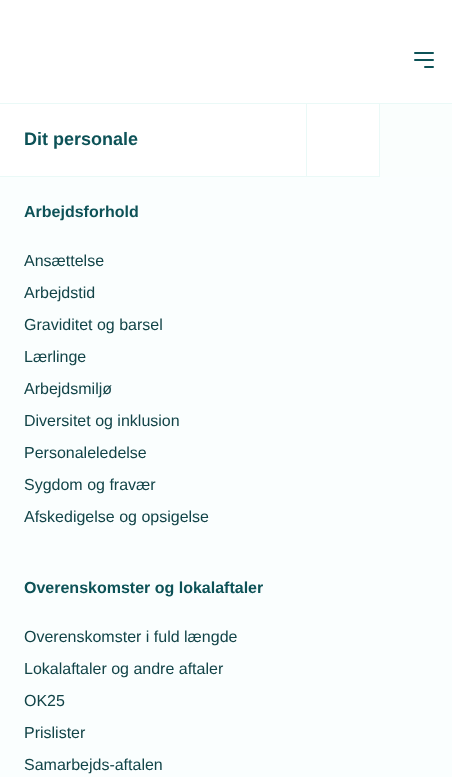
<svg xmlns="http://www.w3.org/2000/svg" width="452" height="777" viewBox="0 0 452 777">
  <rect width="100%" height="100%" fill="#fff"/>
  <path d="M0 103h452v1H0z" fill="#eaf9f7"/>
  <rect x="424" y="66" width="10" height="2" rx="1" fill="#0d5257"/>
  <rect x="414" y="52" width="20" height="2" rx="1" fill="#0d5257"/>
  <rect x="414" y="59" width="20" height="2" rx="1" fill="#0d5257"/>
  <path d="M0 176h379v1H0z" fill="#eaf9f7"/>
  <path d="M306 104h1v73H306z" fill="#eaf9f7"/>
  <path d="M380 104h72v73H380z" fill="#fafefd"/>
  <path d="M379 104h1v73H379z" fill="#eaf9f7"/>
  <path d="M0 177h452v600H0z" fill="#fafefe"/>
  <text x="24" y="145" font-family="Liberation Sans" font-size="18" font-weight="bold" fill="#0d5257">Dit personale</text>
  <text x="24" y="217" font-family="Liberation Sans" font-size="16" font-weight="bold" fill="#0d5257">Arbejdsforhold</text>
  <g font-family="Liberation Sans" font-size="16" fill="#124448">
    <text x="24" y="266">Ansættelse</text>
    <text x="24" y="298">Arbejdstid</text>
    <text x="24" y="330">Graviditet og barsel</text>
    <text x="24" y="362">Lærlinge</text>
    <text x="24" y="394">Arbejdsmiljø</text>
    <text x="24" y="426">Diversitet og inklusion</text>
    <text x="24" y="458">Personaleledelse</text>
    <text x="24" y="490">Sygdom og fravær</text>
    <text x="24" y="522">Afskedigelse og opsigelse</text>
  </g>
  <text x="24" y="593" font-family="Liberation Sans" font-size="16" font-weight="bold" fill="#0d5257">Overenskomster og lokalaftaler</text>
  <g font-family="Liberation Sans" font-size="16" fill="#124448">
    <text x="24" y="642">Overenskomster i fuld længde</text>
    <text x="24" y="674">Lokalaftaler og andre aftaler</text>
    <text x="24" y="706">OK25</text>
    <text x="24" y="738">Prislister</text>
    <text x="24" y="770">Samarbejds-aftalen</text>
  </g>
</svg>
